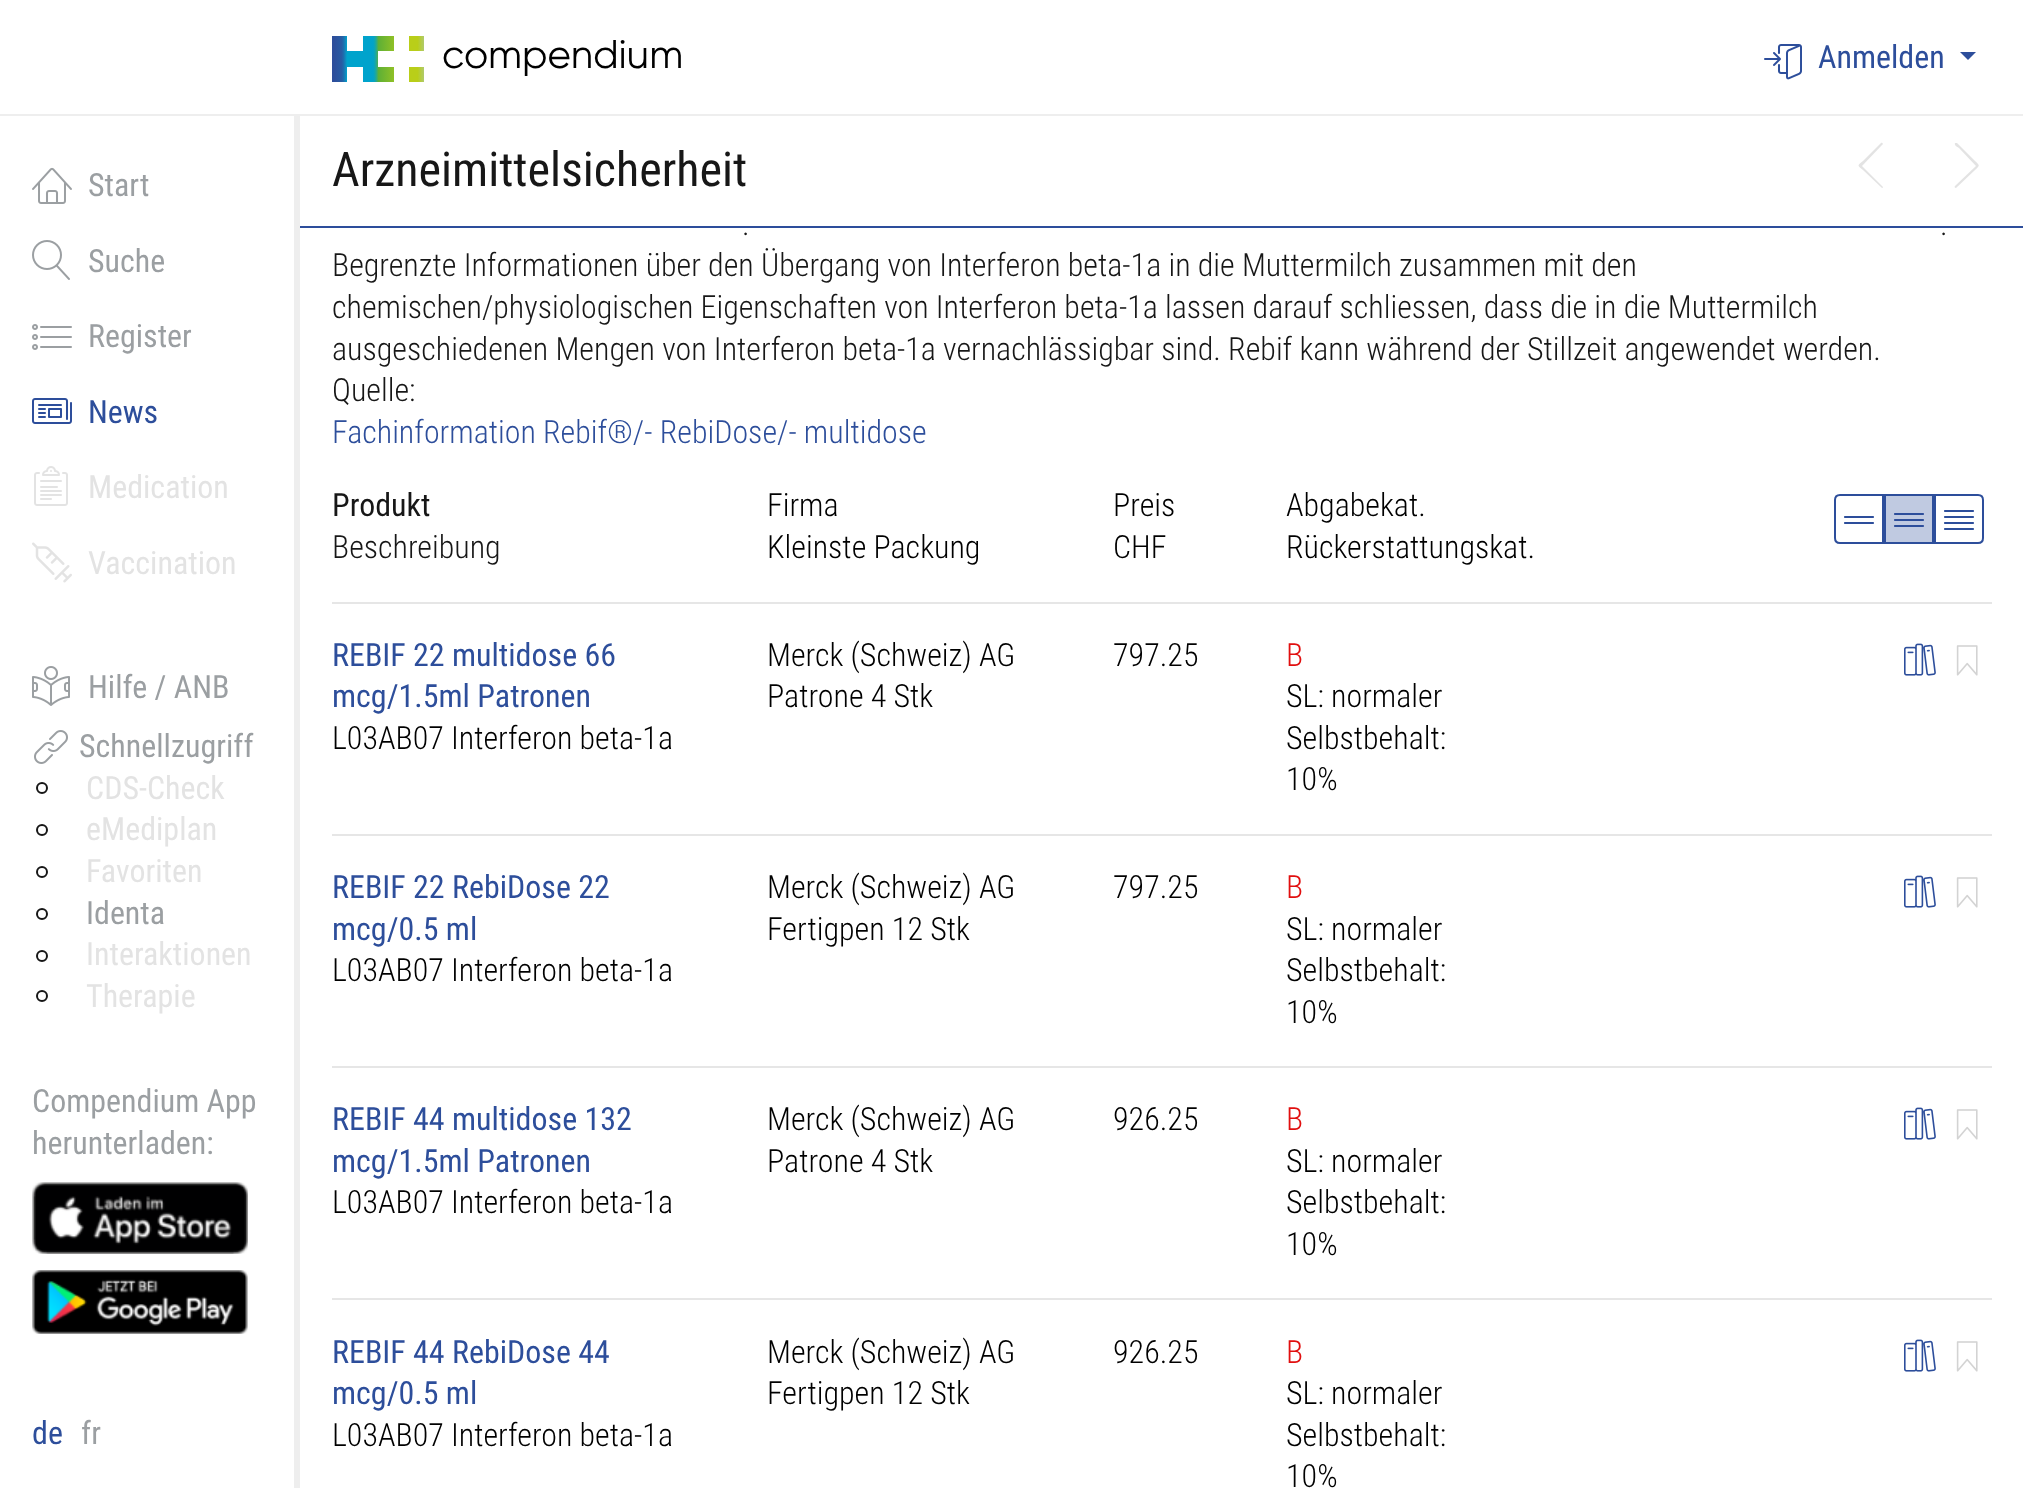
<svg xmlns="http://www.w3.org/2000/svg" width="2023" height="1488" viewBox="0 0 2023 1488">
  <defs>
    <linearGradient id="g1" gradientUnits="userSpaceOnUse" x1="334" y1="59" x2="427" y2="59"><stop offset="0" stop-color="#2d4e9b"/><stop offset="0.08" stop-color="#285ba3"/><stop offset="0.1" stop-color="#1f6aac"/><stop offset="0.13" stop-color="#0993c3"/><stop offset="0.14" stop-color="#00a3cc"/><stop offset="0.4" stop-color="#00a3cc"/><stop offset="0.42" stop-color="#02a3c9"/><stop offset="0.43" stop-color="#08a4bf"/><stop offset="0.44" stop-color="#12a6af"/><stop offset="0.45" stop-color="#21a798"/><stop offset="0.46" stop-color="#34aa7a"/><stop offset="0.47" stop-color="#4aad56"/><stop offset="0.48" stop-color="#5fb035"/><stop offset="0.79" stop-color="#b9ce19"/><stop offset="0.95" stop-color="#aeca78"/></linearGradient>
    <linearGradient id="g2" gradientUnits="userSpaceOnUse" x1="334" y1="44" x2="427" y2="44"><stop offset="0.9" stop-color="#b9ce19"/><stop offset="0.95" stop-color="#b2cb57"/><stop offset="0.98" stop-color="#aeca78"/></linearGradient>
    <linearGradient id="g3" gradientUnits="userSpaceOnUse" x1="334" y1="74" x2="427" y2="74"><stop offset="0.9" stop-color="#b9ce19"/><stop offset="0.95" stop-color="#b2cb57"/><stop offset="0.98" stop-color="#aeca78"/></linearGradient>
  </defs>
  <rect width="100%" height="100%" fill="#fff"/>
  <path d="M0 114h2023v2H0z" fill="#eee"/>
  <path d="M378 36H363V51H347V36H332V82H347V67H363V82H394V67H378V51H394V36Z" fill="url(#g1)"/>
  <path d="M409 36h15v15H409z" fill="url(#g2)"/>
  <path d="M409 67h15v15H409z" fill="url(#g3)"/>
  <image x="1764" y="44" width="38" height="36" href="img/1.png"/>
  <path d="M1960 52H1976L1968 60Z" fill="#2d4e9b"/>
  <path d="M300 226h1723v2H300z" fill="#2d4e9b"/>
  <path d="M1882 188C1883 188 1883 187 1883 187L1862 166L1882 145C1884 144 1882 142 1881 143L1863 161C1857 166 1857 165 1863 170Z" fill="#e3e3e3"/>
  <path d="M1956 188C1955 188 1954 187 1955 186L1976 166L1959 148C1957 147 1954 145 1955 143C1955 143 1956 143 1957 143L1975 161C1980 166 1980 165 1975 170Z" fill="#e3e3e3"/>
  <path d="M294 116h6v1372H294z" fill="#eee"/>
  <image x="32" y="167" width="40" height="37" href="img/2.png"/>
  <image x="32" y="240" width="38" height="40" href="img/3.png"/>
  <image x="32" y="324" width="40" height="26" href="img/4.png"/>
  <image x="32" y="398" width="40" height="26" href="img/5.png"/>
  <image x="34" y="466" width="34" height="40" href="img/6.png"/>
  <image x="32" y="542" width="40" height="41" href="img/7.png"/>
  <image x="32" y="666" width="38" height="40" href="img/8.png"/>
  <image x="34" y="730" width="34" height="34" href="img/9.png"/>
  <circle cx="42" cy="788" r="5" fill="none" stroke="#171717" stroke-width="2"/>
  <circle cx="42" cy="830" r="5" fill="none" stroke="#171717" stroke-width="2"/>
  <circle cx="42" cy="872" r="5" fill="none" stroke="#171717" stroke-width="2"/>
  <circle cx="42" cy="914" r="5" fill="none" stroke="#171717" stroke-width="2"/>
  <circle cx="42" cy="956" r="5" fill="none" stroke="#171717" stroke-width="2"/>
  <circle cx="42" cy="996" r="5" fill="none" stroke="#171717" stroke-width="2"/>
  <image x="32" y="1182" width="216" height="72" href="img/10.png"/>
  <image x="32" y="1270" width="216" height="64" href="img/11.png"/>
  <path d="M1840 495H1883V543H1840C1837 543 1835 541 1835 538V500C1835 497 1837 495 1840 495Z" fill="none" stroke="#2d4e9b" stroke-width="2"/>
  <image x="1844" y="516" width="30" height="8" href="img/12.png"/>
  <path d="M1885 495h48v48H1885z" fill="#c0cae1" stroke="#2d4e9b" stroke-width="2"/>
  <image x="1894" y="513" width="30" height="14" href="img/13.png"/>
  <path d="M1935 495H1978C1981 495 1983 497 1983 500V538C1983 541 1981 543 1978 543H1935Z" fill="none" stroke="#2d4e9b" stroke-width="2"/>
  <image x="1944" y="510" width="30" height="20" href="img/14.png"/>
  <path d="M332 602h1660v2H332z" fill="#e6e6e6"/>
  <image x="1904" y="643" width="32" height="33" href="img/15.png"/>
  <image x="1956" y="645" width="22" height="31" href="img/16.png"/>
  <path d="M332 834h1660v2H332z" fill="#e6e6e6"/>
  <image x="1904" y="875" width="32" height="33" href="img/15.png"/>
  <image x="1956" y="877" width="22" height="31" href="img/16.png"/>
  <path d="M332 1066h1660v2H332z" fill="#e6e6e6"/>
  <image x="1904" y="1107" width="32" height="33" href="img/15.png"/>
  <image x="1956" y="1109" width="22" height="31" href="img/16.png"/>
  <path d="M332 1298h1660v2H332z" fill="#e6e6e6"/>
  <image x="1904" y="1339" width="32" height="33" href="img/15.png"/>
  <image x="1956" y="1341" width="22" height="31" href="img/16.png"/>
  <text x="442" y="68" font-family="Gilroy" font-size="40" fill="#000">compendium</text>
  <text x="1818" y="68" font-family="Roboto Condensed" font-size="32" fill="#2d4e9b">Anmelden</text>
  <text x="332" y="186" font-family="Roboto Condensed" font-size="48" fill="#171717">Arzneimittelsicherheit</text>
  <g font-family="Roboto Condensed" font-size="32" fill="#9b9fa2">
    <text x="88" y="196">Start</text>
    <text x="88" y="272">Suche</text>
    <text x="88" y="347">Register</text>
  </g>
  <text x="88" y="423" font-family="Roboto Condensed" font-size="32" fill="#2d4e9b">News</text>
  <g font-family="Roboto Condensed" font-size="32" fill="#e3e3e3">
    <text x="88" y="498">Medication</text>
    <text x="88" y="574">Vaccination</text>
  </g>
  <g font-family="Roboto Condensed" font-size="32" fill="#9b9fa2">
    <text x="88" y="698">Hilfe / ANB</text>
    <text x="79" y="757">Schnellzugriff</text>
  </g>
  <g font-family="Roboto Condensed" font-size="32" fill="#e3e3e3">
    <text x="86" y="799">CDS-Check</text>
    <text x="86" y="840">eMediplan</text>
    <text x="86" y="882">Favoriten</text>
  </g>
  <text x="86" y="924" font-family="Roboto Condensed" font-size="32" fill="#9b9fa2">Identa</text>
  <g font-family="Roboto Condensed" font-size="32" fill="#e3e3e3">
    <text x="86" y="965">Interaktionen</text>
    <text x="86" y="1007">Therapie</text>
  </g>
  <g font-family="Roboto Condensed" font-size="32" fill="#9b9fa2">
    <text x="32" y="1112">Compendium App</text>
    <text x="32" y="1154">herunterladen:</text>
  </g>
  <text x="32" y="1444" font-family="Roboto Condensed" font-size="32" fill="#2d4e9b">de</text>
  <text x="81" y="1444" font-family="Roboto Condensed" font-size="32" fill="#9b9fa2">fr</text>
  <g font-family="Roboto Condensed" font-size="32" font-weight="300" fill="#171717">
    <text x="742" y="235">.</text>
    <text x="1940" y="235">.</text>
    <text x="332" y="276">Begrenzte Informationen über den Übergang von Interferon beta-1a in die Muttermilch zusammen mit den</text>
    <text x="332" y="318">chemischen/physiologischen Eigenschaften von Interferon beta-1a lassen darauf schliessen, dass die in die Muttermilch</text>
    <text x="332" y="360">ausgeschiedenen Mengen von Interferon beta-1a vernachlässigbar sind. Rebif kann während der Stillzeit angewendet werden.</text>
    <text x="332" y="401">Quelle:</text>
  </g>
  <text x="332" y="443" font-family="Roboto Condensed" font-size="32" font-weight="300" fill="#2d4e9b">Fachinformation Rebif®/- RebiDose/- multidose</text>
  <text x="332" y="516" font-family="Roboto Condensed" font-size="32" fill="#171717">Produkt</text>
  <text x="332" y="558" font-family="Roboto Condensed" font-size="32" font-weight="300" fill="#171717">Beschreibung</text>
  <g font-family="Roboto Condensed" font-size="32" font-weight="300" fill="#000">
    <text x="767" y="516">Firma</text>
    <text x="767" y="558">Kleinste Packung</text>
    <text x="1113" y="516">Preis</text>
    <text x="1113" y="558">CHF</text>
    <text x="1286" y="516">Abgabekat.</text>
    <text x="1286" y="558">Rückerstattungskat.</text>
  </g>
  <g font-family="Roboto Condensed" font-size="32" fill="#2d4e9b">
    <text x="332" y="666">REBIF 22 multidose 66</text>
    <text x="332" y="707">mcg/1.5ml Patronen</text>
  </g>
  <g font-family="Roboto Condensed" font-size="32" font-weight="300" fill="#000">
    <text x="332" y="749">L03AB07 Interferon beta-1a</text>
    <text x="767" y="666">Merck (Schweiz) AG</text>
    <text x="767" y="707">Patrone 4 Stk</text>
    <text x="1113" y="666">797.25</text>
  </g>
  <text x="1286" y="666" font-family="Roboto Condensed" font-size="32" font-weight="300" fill="#e10f0f">B</text>
  <g font-family="Roboto Condensed" font-size="32" font-weight="300" fill="#000">
    <text x="1286" y="707">SL: normaler</text>
    <text x="1286" y="749">Selbstbehalt:</text>
    <text x="1286" y="790">10%</text>
  </g>
  <g font-family="Roboto Condensed" font-size="32" fill="#2d4e9b">
    <text x="332" y="898">REBIF 22 RebiDose 22</text>
    <text x="332" y="940">mcg/0.5 ml</text>
  </g>
  <g font-family="Roboto Condensed" font-size="32" font-weight="300" fill="#000">
    <text x="332" y="981">L03AB07 Interferon beta-1a</text>
    <text x="767" y="898">Merck (Schweiz) AG</text>
    <text x="767" y="940">Fertigpen 12 Stk</text>
    <text x="1113" y="898">797.25</text>
  </g>
  <text x="1286" y="898" font-family="Roboto Condensed" font-size="32" font-weight="300" fill="#e10f0f">B</text>
  <g font-family="Roboto Condensed" font-size="32" font-weight="300" fill="#000">
    <text x="1286" y="940">SL: normaler</text>
    <text x="1286" y="981">Selbstbehalt:</text>
    <text x="1286" y="1023">10%</text>
  </g>
  <g font-family="Roboto Condensed" font-size="32" fill="#2d4e9b">
    <text x="332" y="1130">REBIF 44 multidose 132</text>
    <text x="332" y="1172">mcg/1.5ml Patronen</text>
  </g>
  <g font-family="Roboto Condensed" font-size="32" font-weight="300" fill="#000">
    <text x="332" y="1213">L03AB07 Interferon beta-1a</text>
    <text x="767" y="1130">Merck (Schweiz) AG</text>
    <text x="767" y="1172">Patrone 4 Stk</text>
    <text x="1113" y="1130">926.25</text>
  </g>
  <text x="1286" y="1130" font-family="Roboto Condensed" font-size="32" font-weight="300" fill="#e10f0f">B</text>
  <g font-family="Roboto Condensed" font-size="32" font-weight="300" fill="#000">
    <text x="1286" y="1172">SL: normaler</text>
    <text x="1286" y="1213">Selbstbehalt:</text>
    <text x="1286" y="1255">10%</text>
  </g>
  <g font-family="Roboto Condensed" font-size="32" fill="#2d4e9b">
    <text x="332" y="1363">REBIF 44 RebiDose 44</text>
    <text x="332" y="1404">mcg/0.5 ml</text>
  </g>
  <g font-family="Roboto Condensed" font-size="32" font-weight="300" fill="#000">
    <text x="332" y="1446">L03AB07 Interferon beta-1a</text>
    <text x="767" y="1363">Merck (Schweiz) AG</text>
    <text x="767" y="1404">Fertigpen 12 Stk</text>
    <text x="1113" y="1363">926.25</text>
  </g>
  <text x="1286" y="1363" font-family="Roboto Condensed" font-size="32" font-weight="300" fill="#e10f0f">B</text>
  <g font-family="Roboto Condensed" font-size="32" font-weight="300" fill="#000">
    <text x="1286" y="1404">SL: normaler</text>
    <text x="1286" y="1446">Selbstbehalt:</text>
    <text x="1286" y="1487">10%</text>
  </g>
</svg>
